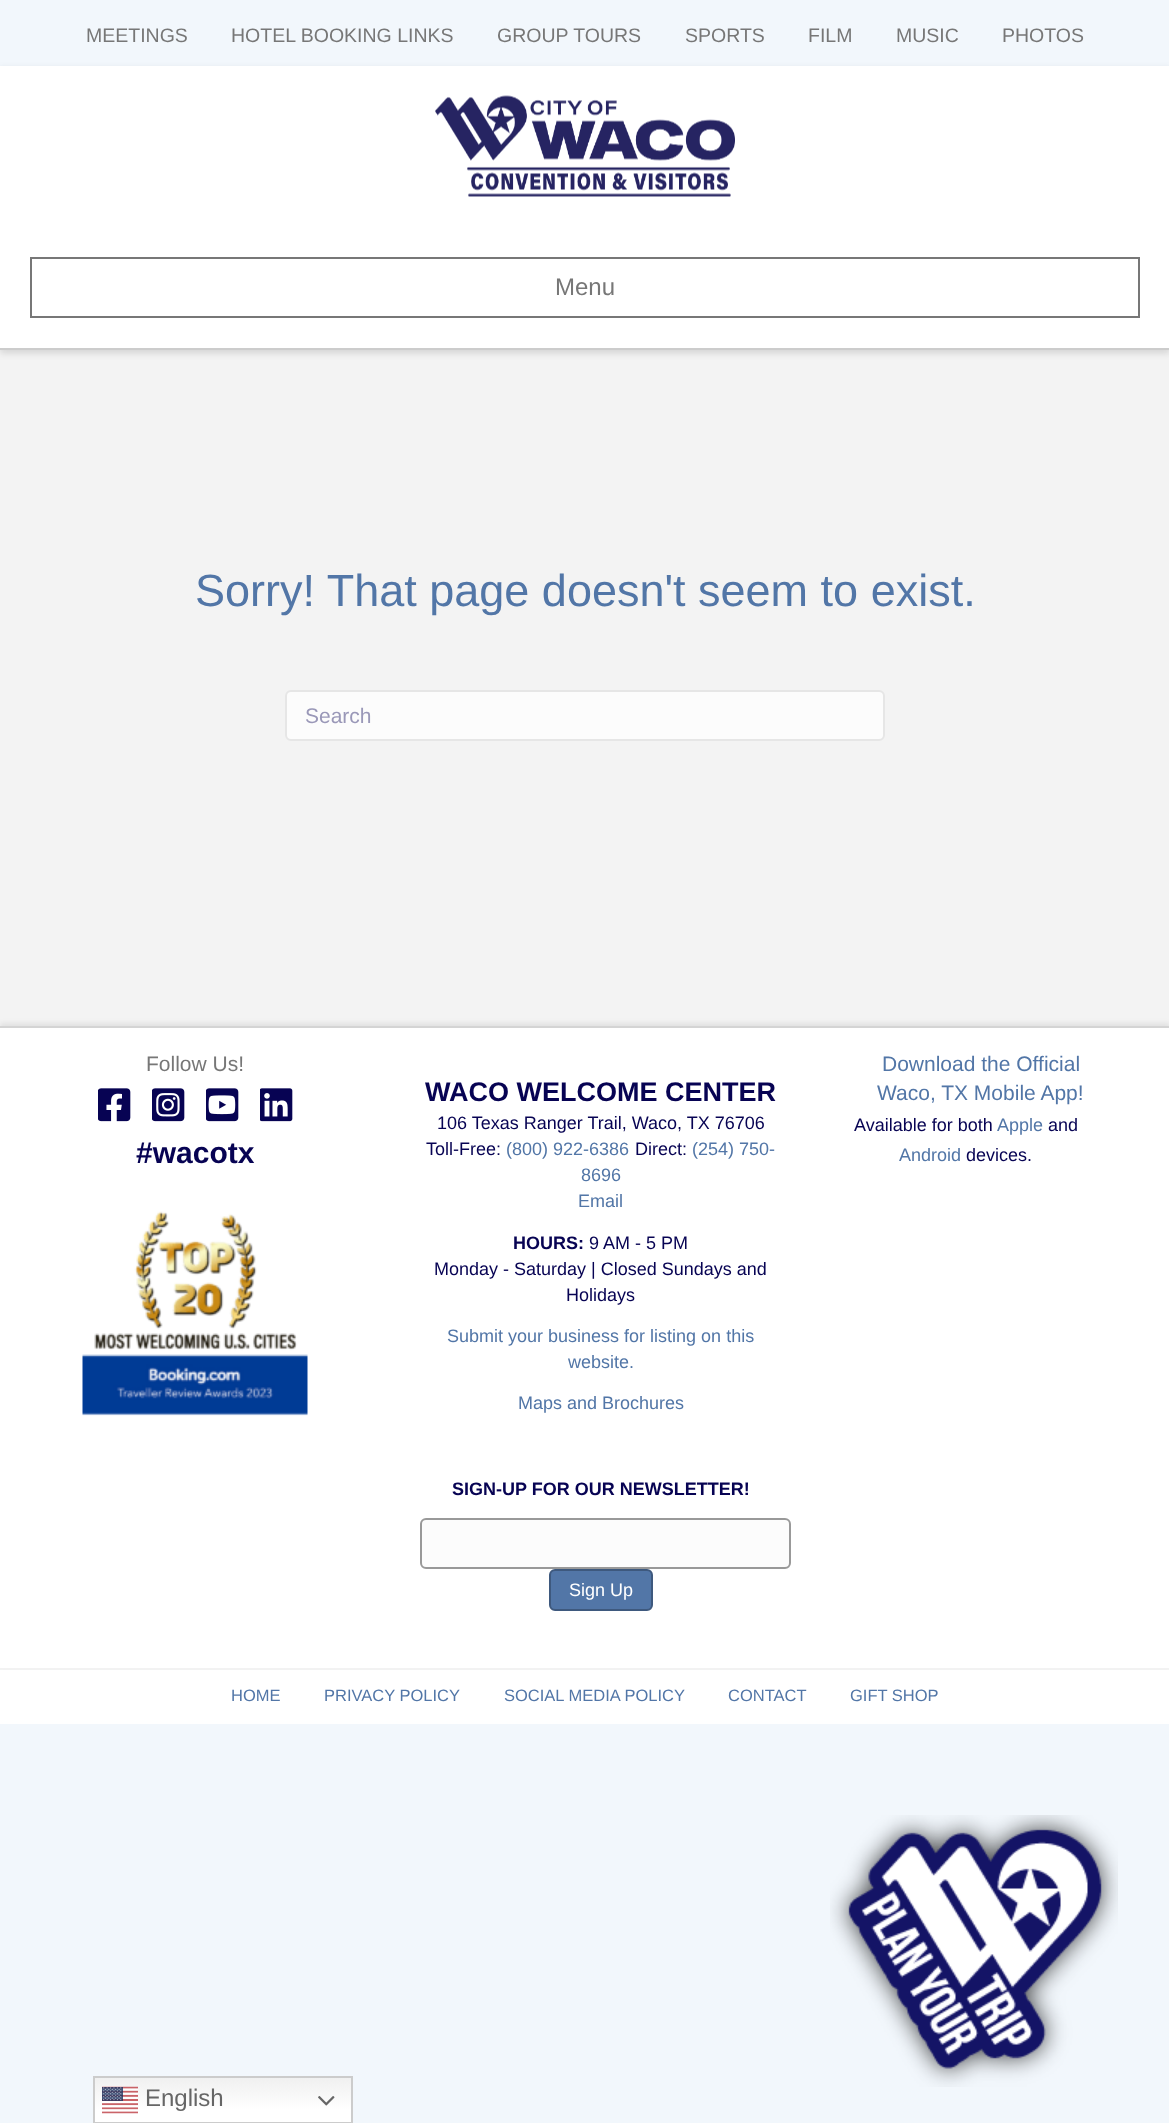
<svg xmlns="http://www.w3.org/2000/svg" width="1169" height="2123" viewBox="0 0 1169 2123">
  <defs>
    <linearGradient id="g1" gradientUnits="userSpaceOnUse" x1="223" y1="2076" x2="223" y2="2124"><stop offset="0" stop-color="#efefef"/><stop offset="0.7" stop-color="#fff"/></linearGradient>
  </defs>
  <rect width="100%" height="100%" fill="#f2f7fc"/>
  <path d="M0 350h1169v676H0z" fill="#f3f3f3"/>
  <path d="M0 69h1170v284H0z" fill="#00000021" filter="blur(3.5px)"/>
  <path d="M0 66h1169v282H0z" fill="#fff"/>
  <path d="M0 348h1169v2H0z" fill="#ccc"/>
  <image x="435" y="95" width="300" height="102" href="img/1.png"/>
  <path d="M31 258h1108v59H31z" fill="none" stroke="#777" stroke-width="2"/>
  <rect x="286" y="691" width="598" height="49" rx="5" fill="#fcfcfc" stroke="#e6e6e6" stroke-width="2"/>
  <path d="M0 1670h1169v54H0z" fill="#fff"/>
  <path d="M0 1668h1169v2H0z" fill="#f3f3f3"/>
  <path d="M0 1023h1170v642H0z" fill="#00000012" filter="blur(2.5px)"/>
  <path d="M0 1028h1169v640H0z" fill="#fff"/>
  <path d="M0 1026h1169v2H0z" fill="#d4d4d4"/>
  <image x="98" y="1088" width="33" height="34" href="img/2.png"/>
  <image x="152" y="1088" width="33" height="34" href="img/3.png"/>
  <image x="206" y="1088" width="33" height="34" href="img/4.png"/>
  <image x="260" y="1088" width="33" height="34" href="img/5.png"/>
  <image x="82" y="1211" width="226" height="205" href="img/6.png"/>
  <rect x="421" y="1519" width="369" height="49" rx="5" fill="#fcfcfc" stroke="#999" stroke-width="2"/>
  <rect x="550" y="1570" width="102" height="40" rx="5" fill="#5276a7" stroke="#3e597e" stroke-width="2"/>
  <image x="830" y="1815" width="288" height="272" href="img/7.png"/>
  <path d="M95 2078h256v44H95z" fill="url(#g1)"/>
  <path d="M94 2077h258v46H94z" fill="none" stroke="#ccc" stroke-width="2"/>
  <image x="102" y="2086" width="36" height="28" href="img/8.png"/>
  <image x="318" y="2096" width="17" height="10" href="img/9.png"/>
  <g font-family="Liberation Sans" font-size="19.5" fill="#777">
    <text x="86" y="42">MEETINGS</text>
    <text x="231" y="42">HOTEL BOOKING LINKS</text>
    <text x="497" y="42">GROUP TOURS</text>
    <text x="685" y="42">SPORTS</text>
    <text x="808" y="42">FILM</text>
    <text x="896" y="42">MUSIC</text>
    <text x="1002" y="42">PHOTOS</text>
  </g>
  <text x="555" y="295" font-family="Liberation Sans" font-size="24" fill="#777">Menu</text>
  <text x="195" y="606" font-family="Liberation Sans" font-size="45" fill="#5276a7">Sorry! That page doesn't seem to exist.</text>
  <text x="305" y="723" font-family="Liberation Sans" font-size="21" fill="#9a98b8">Search</text>
  <text x="146" y="1071" font-family="Liberation Sans" font-size="21" fill="#777">Follow Us!</text>
  <text x="136" y="1163" font-family="Liberation Sans" font-size="30" font-weight="bold" fill="#070353">#wacotx</text>
  <text x="425" y="1101" font-family="Liberation Sans" font-size="27" font-weight="bold" fill="#070353">WACO WELCOME CENTER</text>
  <g font-family="Liberation Sans" font-size="18" fill="#070353">
    <text x="437" y="1129">106 Texas Ranger Trail, Waco, TX 76706</text>
    <text x="426" y="1155">Toll-Free:</text>
  </g>
  <text x="506" y="1155" font-family="Liberation Sans" font-size="18" fill="#5276a7">(800) 922-6386</text>
  <text x="635" y="1155" font-family="Liberation Sans" font-size="18" fill="#070353">Direct:</text>
  <g font-family="Liberation Sans" font-size="18" fill="#5276a7">
    <text x="692" y="1155">(254) 750-</text>
    <text x="581" y="1181">8696</text>
    <text x="578" y="1207">Email</text>
  </g>
  <text x="513" y="1249" font-family="Liberation Sans" font-size="18" font-weight="bold" fill="#070353">HOURS:</text>
  <g font-family="Liberation Sans" font-size="18" fill="#070353">
    <text x="589" y="1249">9 AM - 5 PM</text>
    <text x="434" y="1275">Monday - Saturday | Closed Sundays and</text>
    <text x="566" y="1301">Holidays</text>
  </g>
  <g font-family="Liberation Sans" font-size="18" fill="#5276a7">
    <text x="447" y="1342">Submit your business for listing on this</text>
    <text x="568" y="1368">website.</text>
    <text x="518" y="1409">Maps and Brochures</text>
  </g>
  <text x="452" y="1495" font-family="Liberation Sans" font-size="18" font-weight="bold" fill="#070353">SIGN-UP FOR OUR NEWSLETTER!</text>
  <text x="569" y="1596" font-family="Liberation Sans" font-size="18" fill="#fff">Sign Up</text>
  <g font-family="Liberation Sans" font-size="21" fill="#5276a7">
    <text x="882" y="1071">Download the Official</text>
    <text x="877" y="1100">Waco, TX Mobile App!</text>
  </g>
  <text x="854" y="1131" font-family="Liberation Sans" font-size="18" fill="#070353">Available for both</text>
  <text x="997" y="1131" font-family="Liberation Sans" font-size="18" fill="#5276a7">Apple</text>
  <text x="1048" y="1131" font-family="Liberation Sans" font-size="18" fill="#070353">and</text>
  <text x="899" y="1161" font-family="Liberation Sans" font-size="18" fill="#5276a7">Android</text>
  <text x="966" y="1161" font-family="Liberation Sans" font-size="18" fill="#070353">devices.</text>
  <g font-family="Liberation Sans" font-size="16.5" fill="#5276a7">
    <text x="231" y="1701">HOME</text>
    <text x="324" y="1701">PRIVACY POLICY</text>
    <text x="504" y="1701">SOCIAL MEDIA POLICY</text>
    <text x="728" y="1701">CONTACT</text>
    <text x="850" y="1701">GIFT SHOP</text>
  </g>
  <text x="145" y="2106" font-family="Liberation Sans" font-size="24" fill="#666">English</text>
</svg>
